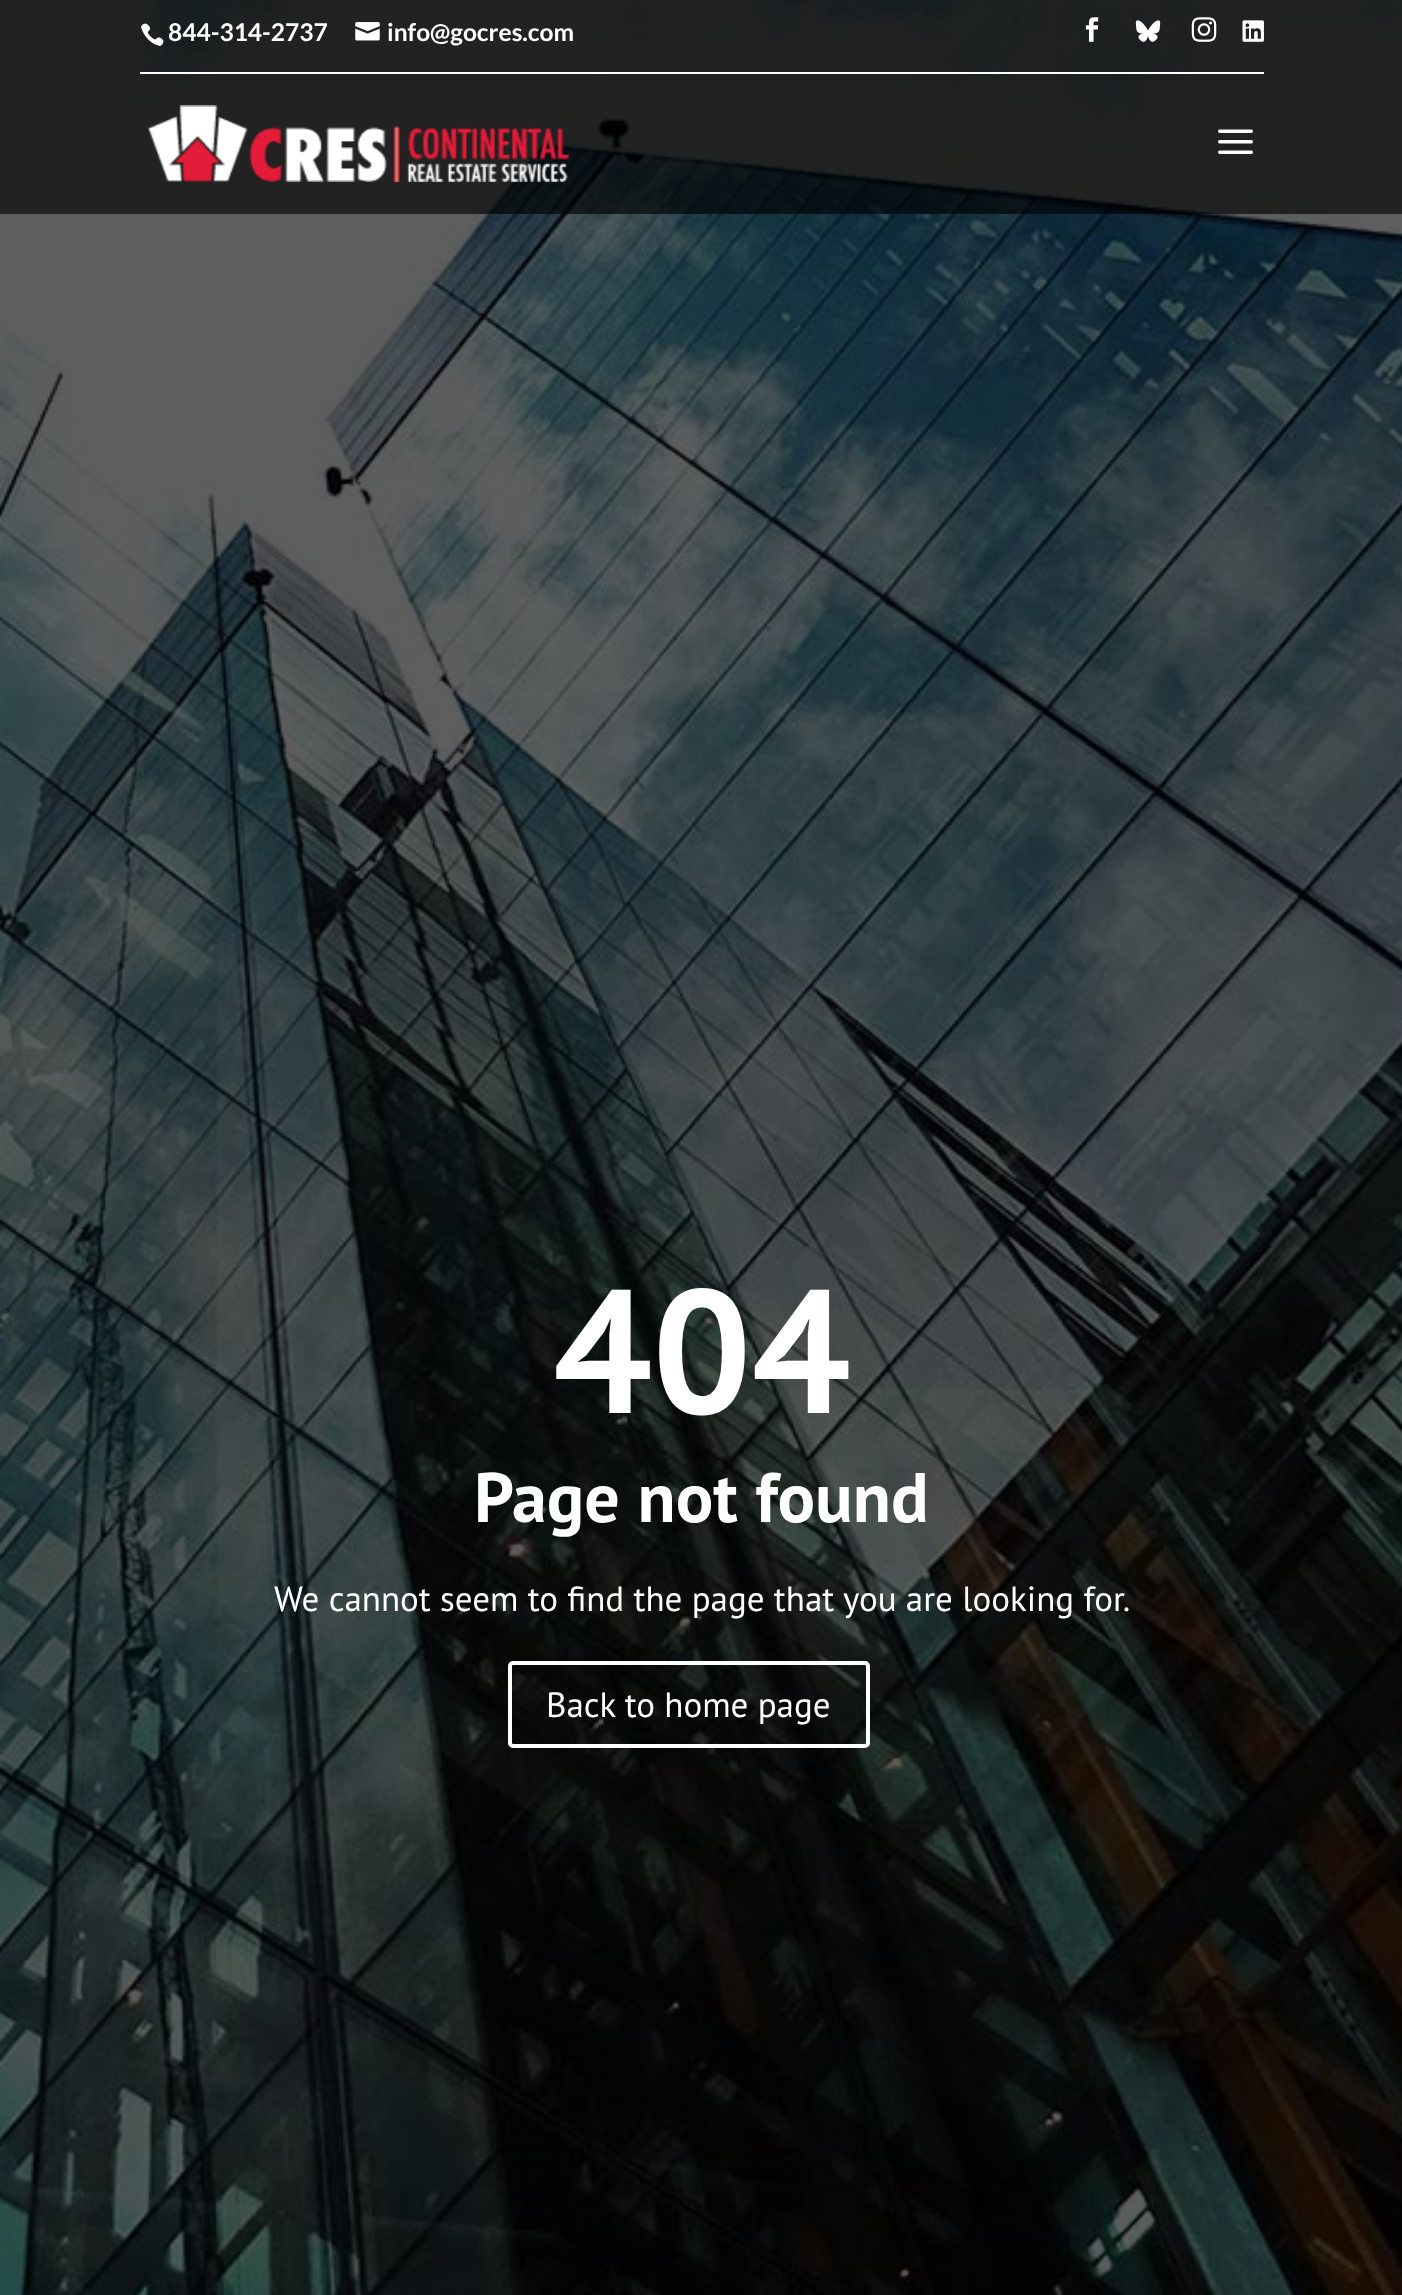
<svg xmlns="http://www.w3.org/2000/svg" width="1402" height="2295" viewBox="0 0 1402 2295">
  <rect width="100%" height="100%" fill="#fff"/>
  <image x="0" y="0" width="1402" height="2295" href="img/9.png"/>
  <path d="M0 0h1402v74H0z" fill="#000000a3"/>
  <path d="M140 72h1124v2H140z" fill="#fff"/>
  <image x="141" y="23" width="23" height="23" href="img/1.png"/>
  <image x="355" y="22" width="25" height="19" href="img/2.png"/>
  <image x="1085" y="17" width="14" height="25" href="img/3.png"/>
  <image x="1135" y="20" width="26" height="22" href="img/4.png"/>
  <image x="1191" y="17" width="26" height="25" href="img/5.png"/>
  <image x="1242" y="20" width="22" height="22" href="img/6.png"/>
  <path d="M0 74h1402v140H0z" fill="#000000a3"/>
  <image x="148" y="105" width="421" height="77" href="img/7.png"/>
  <image x="1218" y="129" width="35" height="25" href="img/8.png"/>
  <rect x="510" y="1663" width="358" height="83" rx="3" fill="none" stroke="#fff" stroke-width="4"/>
  <g font-family="Lato" font-size="24.5" font-weight="bold" fill="#fff">
    <text x="168" y="41">844-314-2737</text>
    <text x="387" y="41">info@gocres.com</text>
  </g>
  <text x="553" y="1413" font-family="PT Sans" font-size="175" font-weight="bold" fill="#fff">404</text>
  <text x="474" y="1522" font-family="PT Sans" font-size="70" font-weight="bold" fill="#fff">Page not found</text>
  <g font-family="PT Sans" font-size="35" fill="#fff">
    <text x="274" y="1611">We cannot seem to find the page that you are looking for.</text>
    <text x="546" y="1717">Back to home page</text>
  </g>
</svg>
